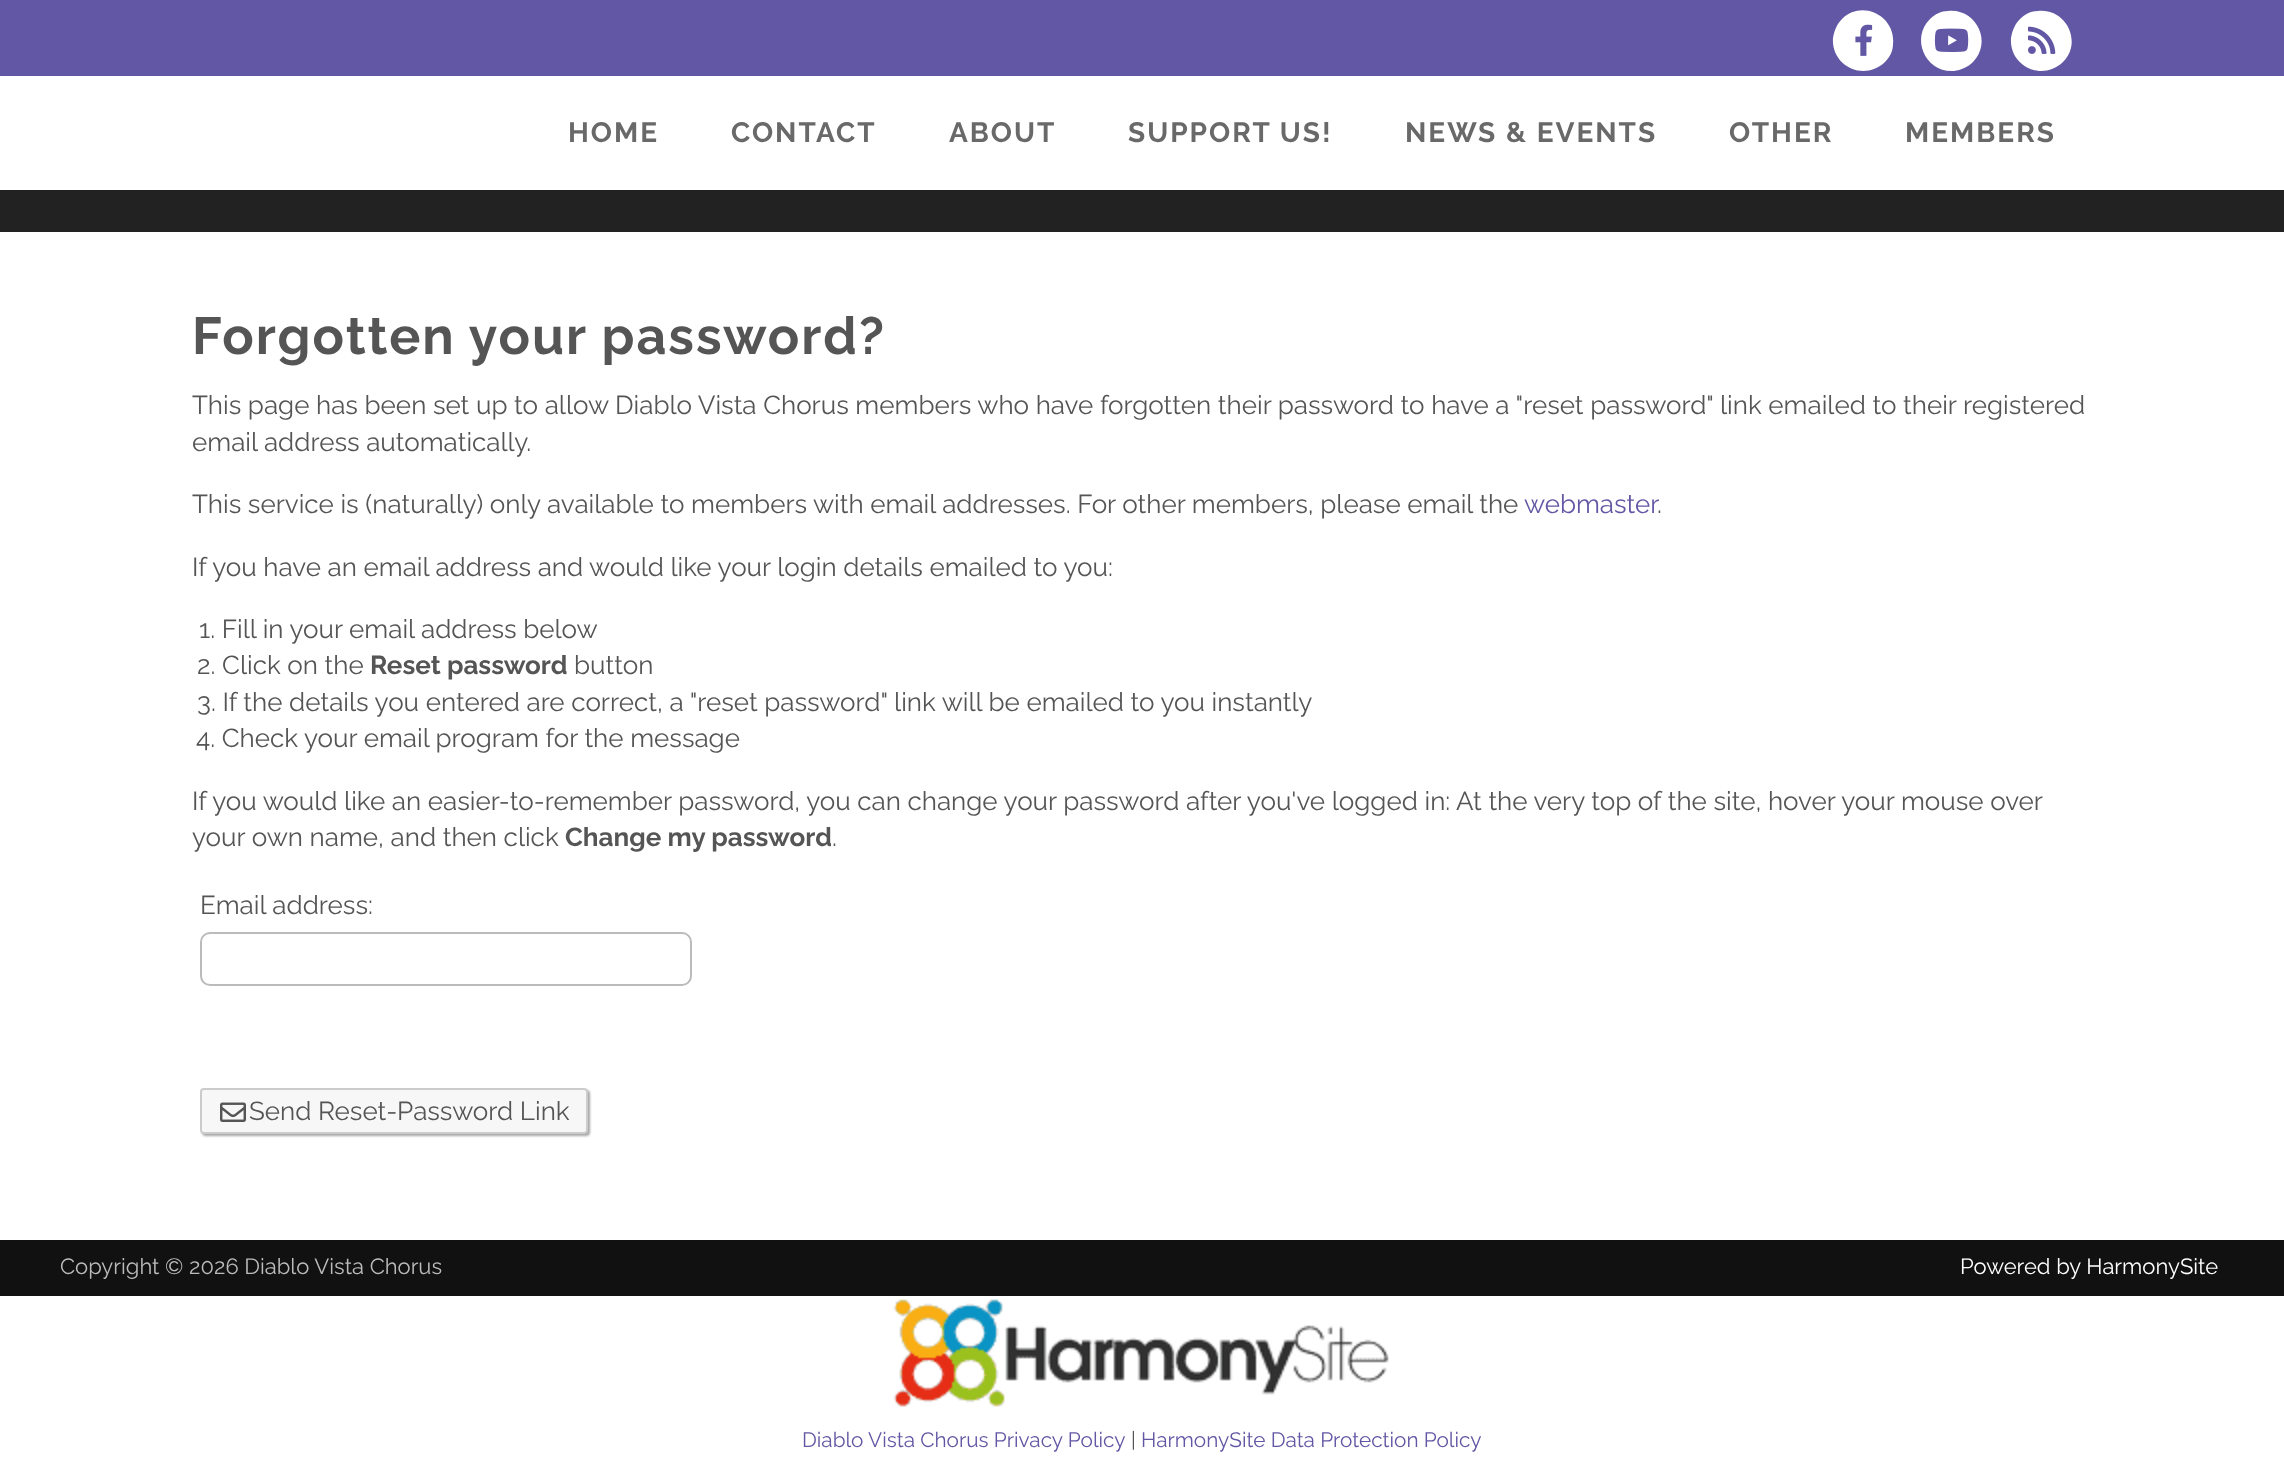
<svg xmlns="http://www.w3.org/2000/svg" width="2284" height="1457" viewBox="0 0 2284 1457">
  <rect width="100%" height="100%" fill="#fff"/>
  <path d="M0 0h2284v76H0z" fill="#6257a5"/>
  <path d="M1842 19C1862-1 1896 16 1893 44C1893 51 1890 57 1885 62C1864 82 1831 66 1833 38C1834 31 1837 24 1842 19Z" fill="#fff"/>
  <image x="1855" y="24" width="18" height="32" href="img/1.png"/>
  <path d="M1930 19C1935 14 1941 11 1948 11C1976 8 1993 42 1973 62C1968 67 1961 70 1954 71C1926 73 1910 39 1930 19Z" fill="#fff"/>
  <image x="1934" y="28" width="35" height="24" href="img/2.png"/>
  <path d="M2020 19C2025 14 2031 11 2038 11C2066 8 2083 42 2063 62C2042 82 2009 66 2011 38C2012 31 2015 24 2020 19Z" fill="#fff"/>
  <image x="2028" y="26" width="28" height="28" href="img/3.png"/>
  <path d="M0 190h2284v42H0z" fill="#222"/>
  <rect x="201" y="933" width="490" height="52" rx="9" fill="none" stroke="#bbb" stroke-width="2"/>
  <rect x="202" y="1090" width="388" height="46" rx="4" fill="#00000059" filter="blur(1px)"/>
  <rect x="201" y="1089" width="386" height="44" rx="3" fill="#f7f7f7" stroke="#ccc" stroke-width="2"/>
  <image x="220" y="1102" width="26" height="20" href="img/4.png"/>
  <path d="M0 1240h2284v56H0z" fill="#111"/>
  <image x="893" y="1299" width="496" height="108" href="img/5.png"/>
  <g font-family="Raleway" font-size="28" font-weight="bold" letter-spacing="2" fill="#696969">
    <text x="568" y="142">HOME</text>
    <text x="731" y="142">CONTACT</text>
    <text x="949" y="142">ABOUT</text>
    <text x="1128" y="142">SUPPORT US!</text>
    <text x="1405" y="142">NEWS &amp; EVENTS</text>
    <text x="1729" y="142">OTHER</text>
    <text x="1905" y="142">MEMBERS</text>
  </g>
  <text x="192" y="354" font-family="Raleway" font-size="52" font-weight="bold" letter-spacing="2" fill="#555">Forgotten your password?</text>
  <g font-family="Raleway" font-size="26" fill="#555">
    <text x="192" y="414">This page has been set up to allow Diablo Vista Chorus members who have forgotten their password to have a "reset password" link emailed to their registered</text>
    <text x="192" y="451">email address automatically.</text>
    <text x="192" y="513">This service is (naturally) only available to members with email addresses. For other members, please email the</text>
  </g>
  <text x="1524" y="513" font-family="Raleway" font-size="26" fill="#6257a5">webmaster</text>
  <g font-family="Raleway" font-size="26" fill="#555">
    <text x="1657" y="513">.</text>
    <text x="192" y="576">If you have an email address and would like your login details emailed to you:</text>
    <text x="199" y="638">1. Fill in your email address below</text>
    <text x="197" y="674">2. Click on the</text>
  </g>
  <text x="370" y="674" font-family="Raleway" font-size="26" font-weight="bold" fill="#555">Reset password</text>
  <g font-family="Raleway" font-size="26" fill="#555">
    <text x="574" y="674">button</text>
    <text x="197" y="711">3. If the details you entered are correct, a "reset password" link will be emailed to you instantly</text>
    <text x="196" y="747">4. Check your email program for the message</text>
    <text x="192" y="810">If you would like an easier-to-remember password, you can change your password after you've logged in: At the very top of the site, hover your mouse over</text>
    <text x="192" y="846">your own name, and then click</text>
  </g>
  <text x="565" y="846" font-family="Raleway" font-size="26" font-weight="bold" fill="#555">Change my password</text>
  <g font-family="Raleway" font-size="26" fill="#555">
    <text x="832" y="846">.</text>
    <text x="200" y="914">Email address:</text>
    <text x="249" y="1120">Send Reset-Password Link</text>
  </g>
  <text x="60" y="1274" font-family="Raleway" font-size="22" fill="#bbb">Copyright © 2026 Diablo Vista Chorus</text>
  <text x="1960" y="1274" font-family="Raleway" font-size="22" fill="#fff">Powered by HarmonySite</text>
  <text x="802" y="1447" font-family="Raleway" font-size="20.75" fill="#6257a5">Diablo Vista Chorus Privacy Policy</text>
  <text x="1131" y="1447" font-family="Raleway" font-size="20.75" fill="#555">|</text>
  <text x="1141" y="1447" font-family="Raleway" font-size="20.75" fill="#6257a5">HarmonySite Data Protection Policy</text>
</svg>
